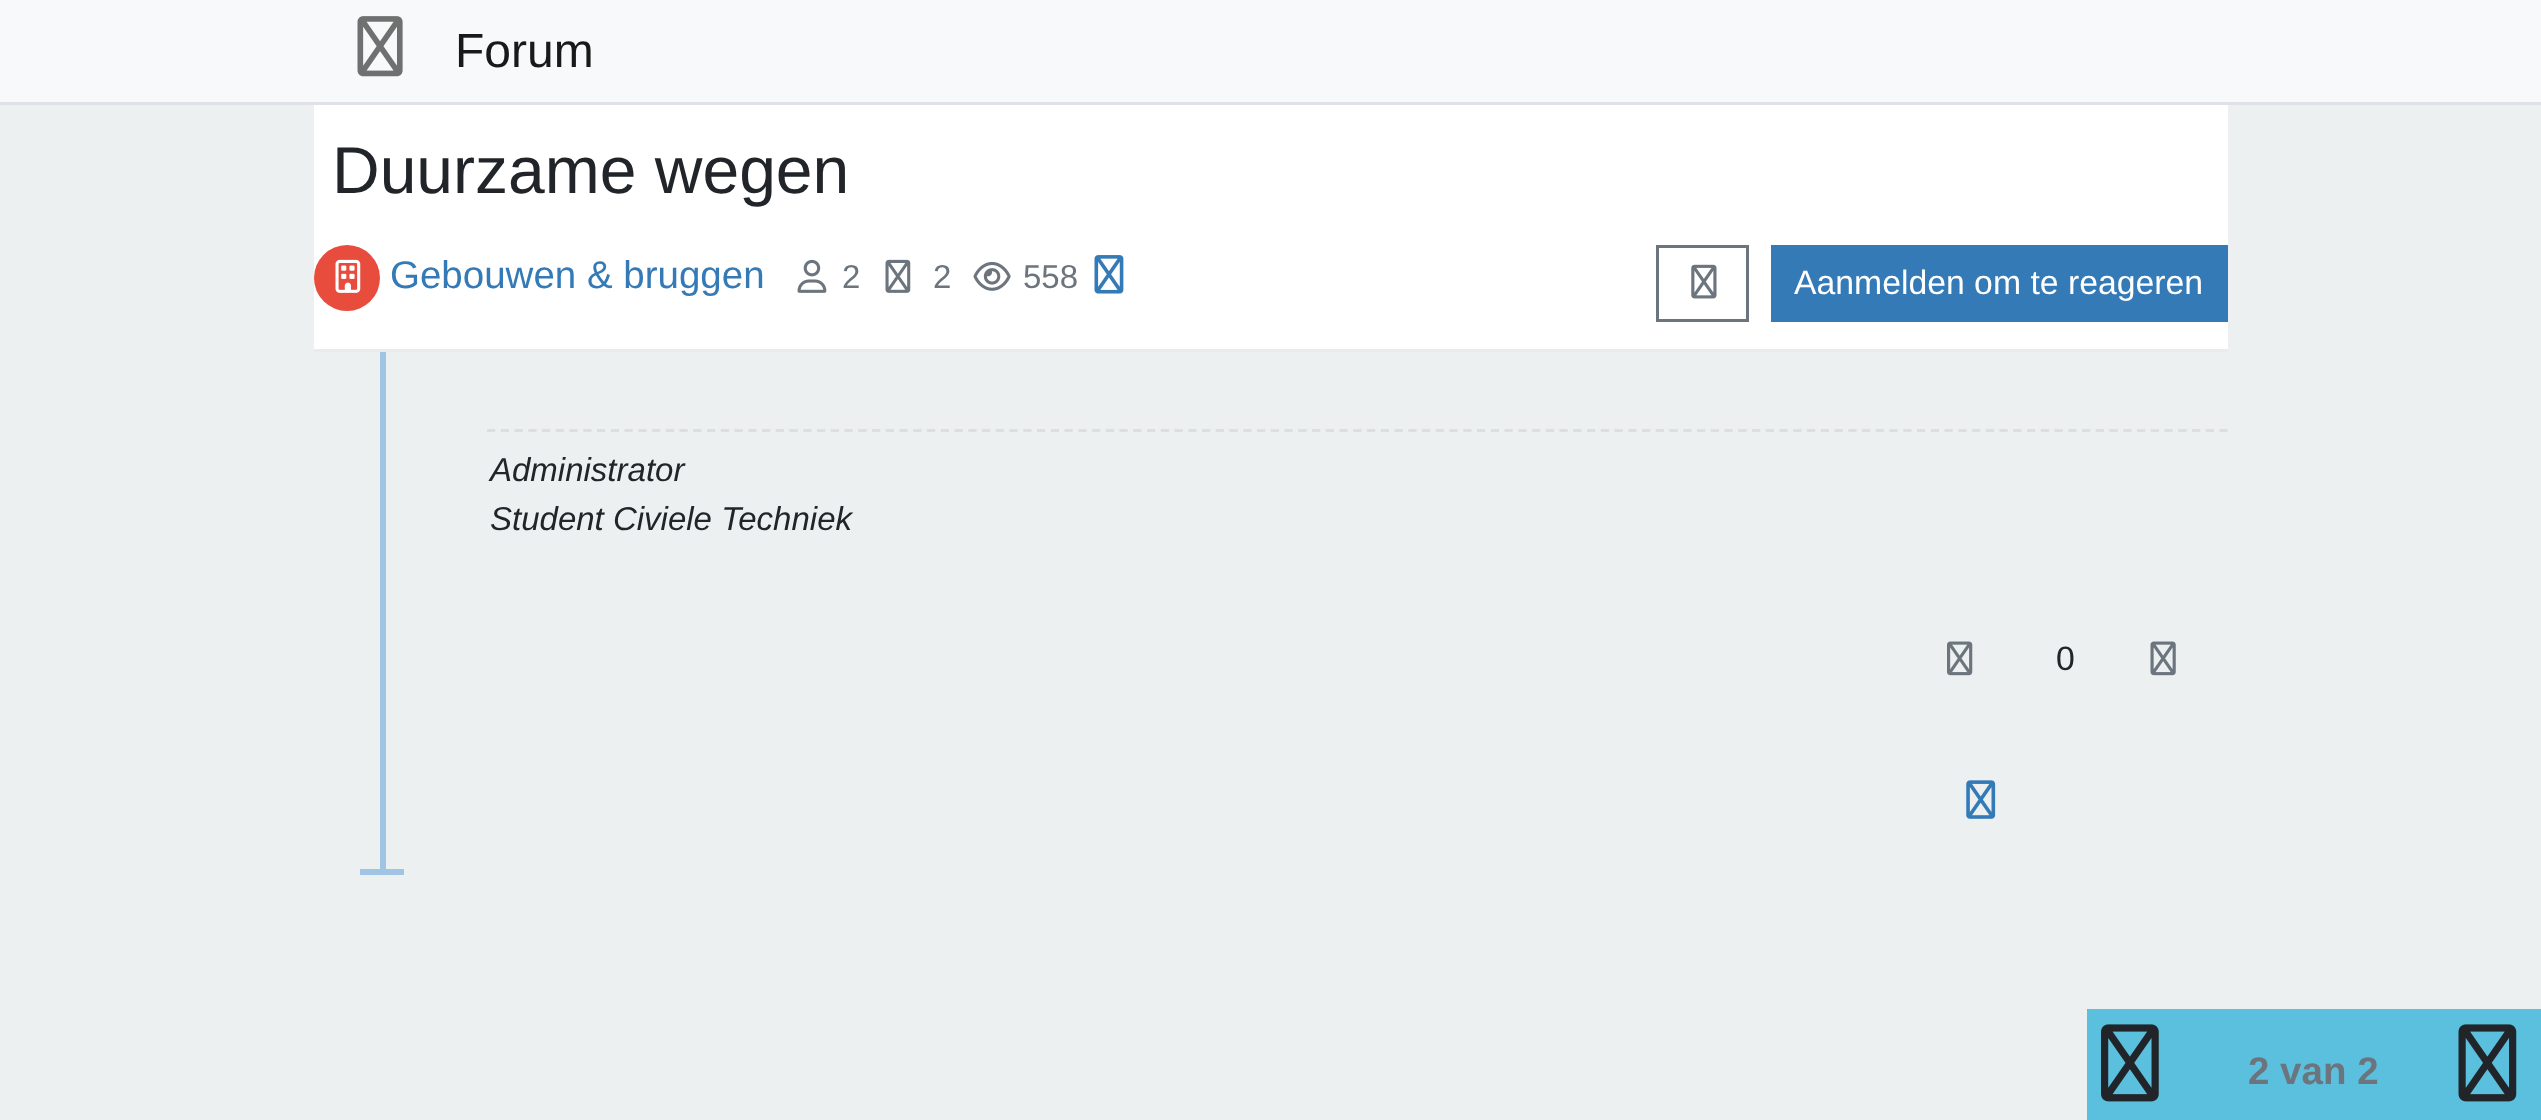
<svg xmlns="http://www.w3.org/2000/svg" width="2541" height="1120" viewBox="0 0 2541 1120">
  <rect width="100%" height="100%" fill="#ecf0f1"/>
  <path d="M0 0h2541v102H0z" fill="#f8f9fa"/>
  <path d="M0 102h2541v3H0z" fill="#dee2e6"/>
  <image x="357" y="16" width="46" height="61" href="img/1.png"/>
  <path d="M314 105h1914v244H314z" fill="#fff"/>
  <path d="M314 349h1914v3H314z" fill="#e9ecef"/>
  <circle cx="347" cy="278" r="33" fill="#e74c3c"/>
  <image x="335" y="259" width="26" height="34" href="img/2.png"/>
  <image x="797" y="259" width="30" height="34" href="img/3.png"/>
  <image x="885" y="259" width="26" height="34" href="img/4.png"/>
  <image x="973" y="261" width="38" height="30" href="img/5.png"/>
  <image x="1094" y="255" width="30" height="39" href="img/6.png"/>
  <path d="M1657.5 246.5h90v74H1657.5z" fill="none" stroke="#6c757d" stroke-width="3"/>
  <image x="1691" y="264" width="26" height="35" href="img/7.png"/>
  <path d="M1771 245h457v77H1771z" fill="#337ab7"/>
  <path d="M380 352h6v523H380z" fill="#a0c4e4"/>
  <path d="M487 430.5H2227.5" fill="none" stroke="#dedede" stroke-width="2.8" stroke-dasharray="8.25 5.5"/>
  <image x="1947" y="641" width="26" height="35" href="img/8.png"/>
  <image x="2150" y="641" width="26" height="35" href="img/9.png"/>
  <image x="1966" y="780" width="30" height="39" href="img/10.png"/>
  <path d="M360 869h44v6H360z" fill="#a0c4e4"/>
  <path d="M2087 1009h454v111H2087z" fill="#5bc0de"/>
  <image x="2101" y="1024" width="58" height="78" href="img/11.png"/>
  <image x="2458" y="1024" width="59" height="78" href="img/12.png"/>
  <text x="455" y="67" font-family="Liberation Sans" font-size="48" fill="#191919">Forum</text>
  <text x="332" y="193" font-family="Liberation Sans" font-size="66" fill="#212529">Duurzame wegen</text>
  <text x="390" y="288" font-family="Liberation Sans" font-size="38.5" fill="#337ab7">Gebouwen &amp; bruggen</text>
  <g font-family="Liberation Sans" font-size="33" fill="#6c757d">
    <text x="842" y="288">2</text>
    <text x="933" y="288">2</text>
    <text x="1023" y="288">558</text>
  </g>
  <text x="1794" y="294" font-family="Liberation Sans" font-size="33.75" fill="#fff">Aanmelden om te reageren</text>
  <g font-family="Liberation Sans" font-size="33" font-style="italic" fill="#212529">
    <text x="490" y="481">Administrator</text>
    <text x="490" y="530">Student Civiele Techniek</text>
  </g>
  <text x="2056" y="670" font-family="Liberation Sans" font-size="33.75" fill="#212529">0</text>
  <text x="2248" y="1084" font-family="Liberation Sans" font-size="38.5" font-weight="bold" fill="#6c757d">2 van 2</text>
</svg>
